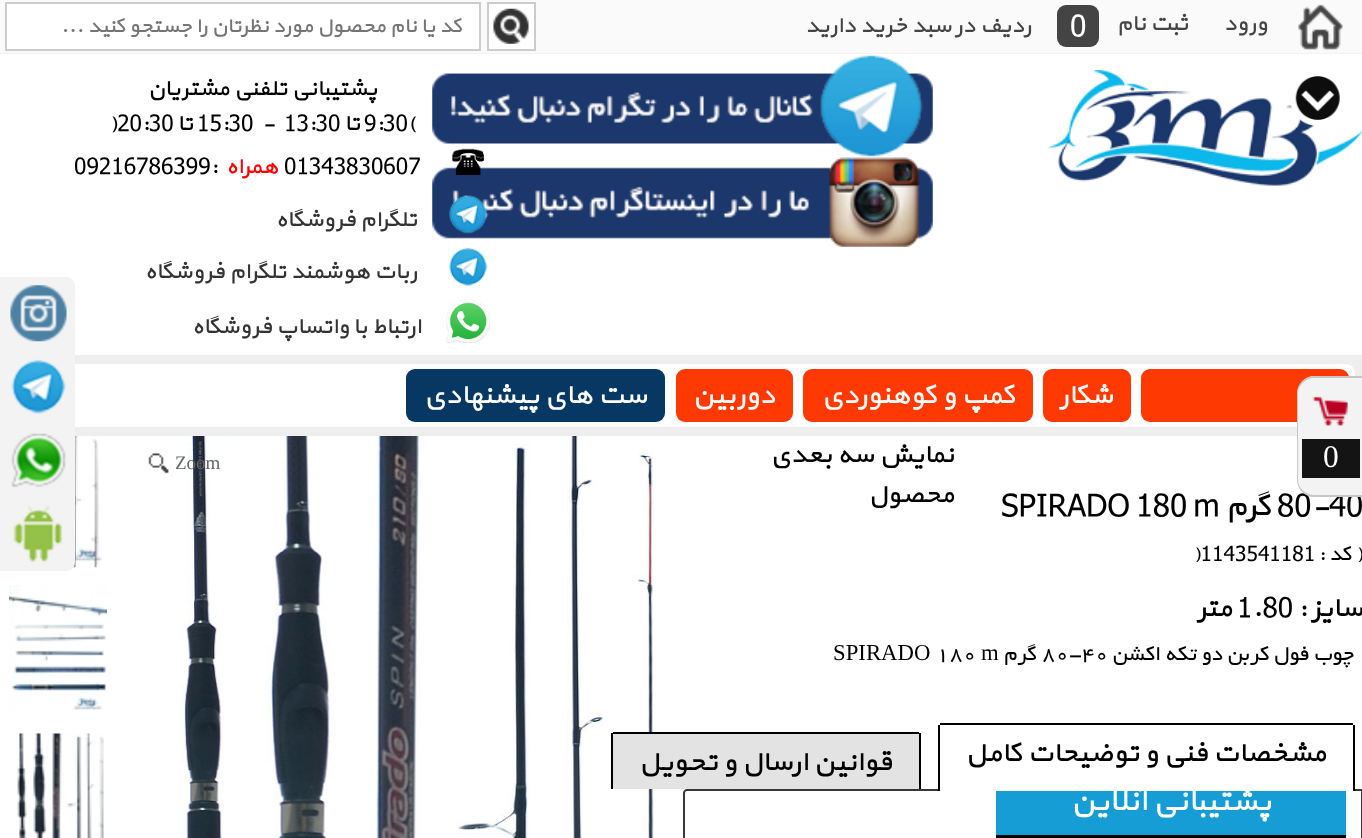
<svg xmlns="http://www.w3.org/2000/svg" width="1362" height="838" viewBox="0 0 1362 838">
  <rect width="100%" height="100%" fill="#fff"/>
  <path d="M0 0h1362v53H0z" fill="#fafafa"/>
  <path d="M0 53h1362v1H0z" fill="#f3f3f3"/>
  <image x="1298" y="4" width="45" height="46" href="img/1.png"/>
  <rect x="1057" y="5" width="42" height="42" rx="9" fill="#444"/>
  <path d="M489 4h45v45H489z" fill="#fff"/>
  <image x="493" y="8" width="36" height="36" href="img/2.png"/>
  <path d="M488 3h47v47H488z" fill="none" stroke="#ccc" stroke-width="2"/>
  <path d="M6 3h474v47H6z" fill="#fff" stroke="#ccc" stroke-width="2"/>
  <image x="1048" y="70" width="314" height="116" href="img/3.png"/>
  <image x="432" y="54" width="501" height="103" href="img/4.png"/>
  <image x="432" y="157" width="501" height="90" href="img/5.png"/>
  <image x="452" y="148" width="32" height="27" href="img/6.png"/>
  <image x="449" y="195" width="39" height="39" href="img/7.png"/>
  <image x="449" y="247" width="39" height="39" href="img/8.png"/>
  <image x="446" y="299" width="44" height="44" href="img/9.png"/>
  <path d="M75 355h1287v81H75z" fill="#eee"/>
  <rect x="9" y="364" width="1346" height="63" rx="9" fill="#fff"/>
  <rect x="1141" y="369" width="208" height="53" rx="9" fill="#ff3901"/>
  <rect x="1043" y="369" width="88" height="53" rx="9" fill="#ff3901"/>
  <rect x="803" y="369" width="230" height="53" rx="9" fill="#ff3901"/>
  <rect x="676" y="369" width="117" height="53" rx="9" fill="#ff3901"/>
  <rect x="406" y="369" width="259" height="53" rx="9" fill="#073763"/>
  <path d="M687 790H1362V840C1362 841.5 1360.5 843 1359 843H687C685.5 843 684 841.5 684 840V793C684 791.5 685.5 790 687 790Z" fill="none" stroke="#383838" stroke-width="2"/>
  <path d="M942 723H1351C1353 723 1355 725 1355 727V791H938V727C938 725 940 723 942 723Z" fill="#fff"/>
  <path d="M940 723h413v2H940z" fill="#000"/>
  <path d="M1353 725h2v66H1353z" fill="#000"/>
  <path d="M938 725h2v66H938z" fill="#000"/>
  <image x="180" y="436" width="474" height="402" href="img/10.png"/>
  <path d="M615 732H917C919 732 921 734 921 736V789H611V736C611 734 613 732 615 732Z" fill="#e3e3e3"/>
  <path d="M613 732h306v2H613z" fill="#000"/>
  <path d="M919 733h2v56H919z" fill="#000"/>
  <path d="M611 733h2v56H611z" fill="#000"/>
  <image x="148" y="453" width="21" height="21" href="img/11.png"/>
  <image x="72" y="436" width="30" height="132" href="img/12.png"/>
  <image x="9" y="585" width="98" height="125" href="img/13.png"/>
  <image x="17" y="733" width="87" height="105" href="img/14.png"/>
  <image x="1290" y="76" width="50" height="50" href="img/15.png"/>
  <path d="M0 277H66C71 277 75 281 75 286V562C75 567 71 571 66 571H0Z" fill="#f3f3f3"/>
  <image x="10" y="285" width="57" height="57" href="img/17.png"/>
  <image x="11" y="359" width="55" height="55" href="img/18.png"/>
  <image x="11" y="433" width="55" height="55" href="img/19.png"/>
  <image x="13" y="505" width="50" height="58" href="img/20.png"/>
  <path d="M996 791h350v44H996z" fill="#179dd6"/>
  <path d="M996 835h350v3H996z" fill="#000"/>
  <g font-family="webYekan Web" font-size="22.75" direction="rtl" fill="#444">
    <text x="1267" y="30">ورود</text>
    <text x="1188" y="30">ثبت نام</text>
  </g>
  <text x="1070" y="35" font-family="webYekan Web" font-size="30" fill="#fff">0</text>
  <text x="1031" y="32" font-family="webYekan Web" font-size="22.75" direction="rtl" fill="#444">ردیف در سبد خرید دارید</text>
  <text x="462" y="32" font-family="webYekan Web" font-size="21" direction="rtl" fill="#757575">کد یا نام محصول مورد نظرتان را جستجو کنید ...</text>
  <text x="377" y="95" font-family="webYekan Web" font-size="22.75" direction="rtl" fill="#000">پشتیبانی تلفنی مشتریان</text>
  <text x="364" y="130" font-family="webYekan Web" font-size="22.75" fill="#000">9:30(</text>
  <text x="360" y="130" font-family="webYekan Web" font-size="22.75" direction="rtl" fill="#000">تا</text>
  <g font-family="webYekan Web" font-size="22.75" fill="#000">
    <text x="284" y="130">13:30</text>
    <text x="262" y="130">-</text>
    <text x="197" y="130">15:30</text>
  </g>
  <text x="193" y="130" font-family="webYekan Web" font-size="22.75" direction="rtl" fill="#000">تا</text>
  <g font-family="webYekan Web" font-size="22.75" fill="#000">
    <text x="109" y="130">)20:30</text>
    <text x="284" y="173">01343830607</text>
  </g>
  <text x="278" y="173" font-family="webYekan Web" font-size="22.75" direction="rtl" fill="#f00">همراه</text>
  <text x="74" y="173" font-family="webYekan Web" font-size="22.75" fill="#000">09216786399:</text>
  <g font-family="webYekan Web" font-size="22.75" direction="rtl" fill="#333">
    <text x="417" y="226">تلگرام فروشگاه</text>
    <text x="417" y="278">ربات هوشمند تلگرام فروشگاه</text>
    <text x="421" y="333">ارتباط با واتساپ فروشگاه</text>
  </g>
  <g font-family="webYekan Web" font-size="28" direction="rtl" fill="#fff">
    <text x="1113" y="403">شکار</text>
    <text x="1015" y="403">کمپ و کوهنوردی</text>
    <text x="775" y="403">دوربین</text>
    <text x="647" y="403">ست های پیشنهادی</text>
  </g>
  <g font-family="webYekan Web" font-size="26.25" direction="rtl" fill="#000">
    <text x="954" y="462">نمایش سه بعدی</text>
    <text x="954" y="502">محصول</text>
  </g>
  <text x="1277" y="515" font-family="webYekan Web" font-size="31.5" fill="#000">80-40</text>
  <text x="1271" y="515" font-family="webYekan Web" font-size="31.5" direction="rtl" fill="#000">گرم</text>
  <text x="1001" y="515" font-family="webYekan Web" font-size="31.5" fill="#000">SPIRADO 180 m</text>
  <text x="1363" y="560" font-family="webYekan Web" font-size="21" direction="rtl" fill="#000">( کد :</text>
  <text x="1193" y="560" font-family="webYekan Web" font-size="21" fill="#000">)1143541181</text>
  <text x="1363" y="616" font-family="webYekan Web" font-size="28" direction="rtl" fill="#000">سایز :</text>
  <text x="1237" y="616" font-family="webYekan Web" font-size="28" fill="#000">1.80</text>
  <text x="1232" y="616" font-family="webYekan Web" font-size="28" direction="rtl" fill="#000">متر</text>
  <text x="1354" y="660" font-family="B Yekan" font-size="22.75" direction="rtl" fill="#000">چوب فول کربن دو تکه اکشن</text>
  <text x="1042" y="660" font-family="B Yekan" font-size="22.75" fill="#000">80-40</text>
  <text x="1037" y="660" font-family="B Yekan" font-size="22.75" direction="rtl" fill="#000">گرم</text>
  <text x="981" y="660" font-family="Liberation Serif" font-size="22.75" fill="#000">m</text>
  <text x="936" y="660" font-family="B Yekan" font-size="22.75" fill="#000">180</text>
  <text x="833" y="660" font-family="Liberation Serif" font-size="22.75" fill="#000">SPIRADO</text>
  <g font-family="webYekan Web" font-size="28" direction="rtl" fill="#000">
    <text x="1326" y="761">مشخصات فنی و توضیحات کامل</text>
    <text x="892" y="770">قوانین ارسال و تحویل</text>
  </g>
  <text x="175" y="469" font-family="Liberation Serif" font-size="19" fill="#646566">Zoom</text>
  <path d="M1315 376H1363V497H1315C1305 497 1297 489 1297 479V394C1297 384 1305 376 1315 376Z" fill="#f3f3f3"/>
  <path d="M1314 376H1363V497H1314C1305 497 1297 489 1297 480V394C1297 384 1305 376 1314 376ZM1314 378H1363V495H1314C1306 495 1298 488 1298 480V394C1298 385 1306 378 1314 378Z" fill="#c7c7c7" fill-rule="evenodd"/>
  <image x="1312" y="396" width="36" height="30" href="img/16.png"/>
  <path d="M1302 439h58v39H1302z" fill="#141414"/>
  <text x="1323" y="467" font-family="Liberation Serif" font-size="31.5" fill="#fff">0</text>
  <text x="1271" y="810" font-family="webYekan Web" font-size="31.5" direction="rtl" fill="#fff">پشتیبانی آنلاین</text>
</svg>
